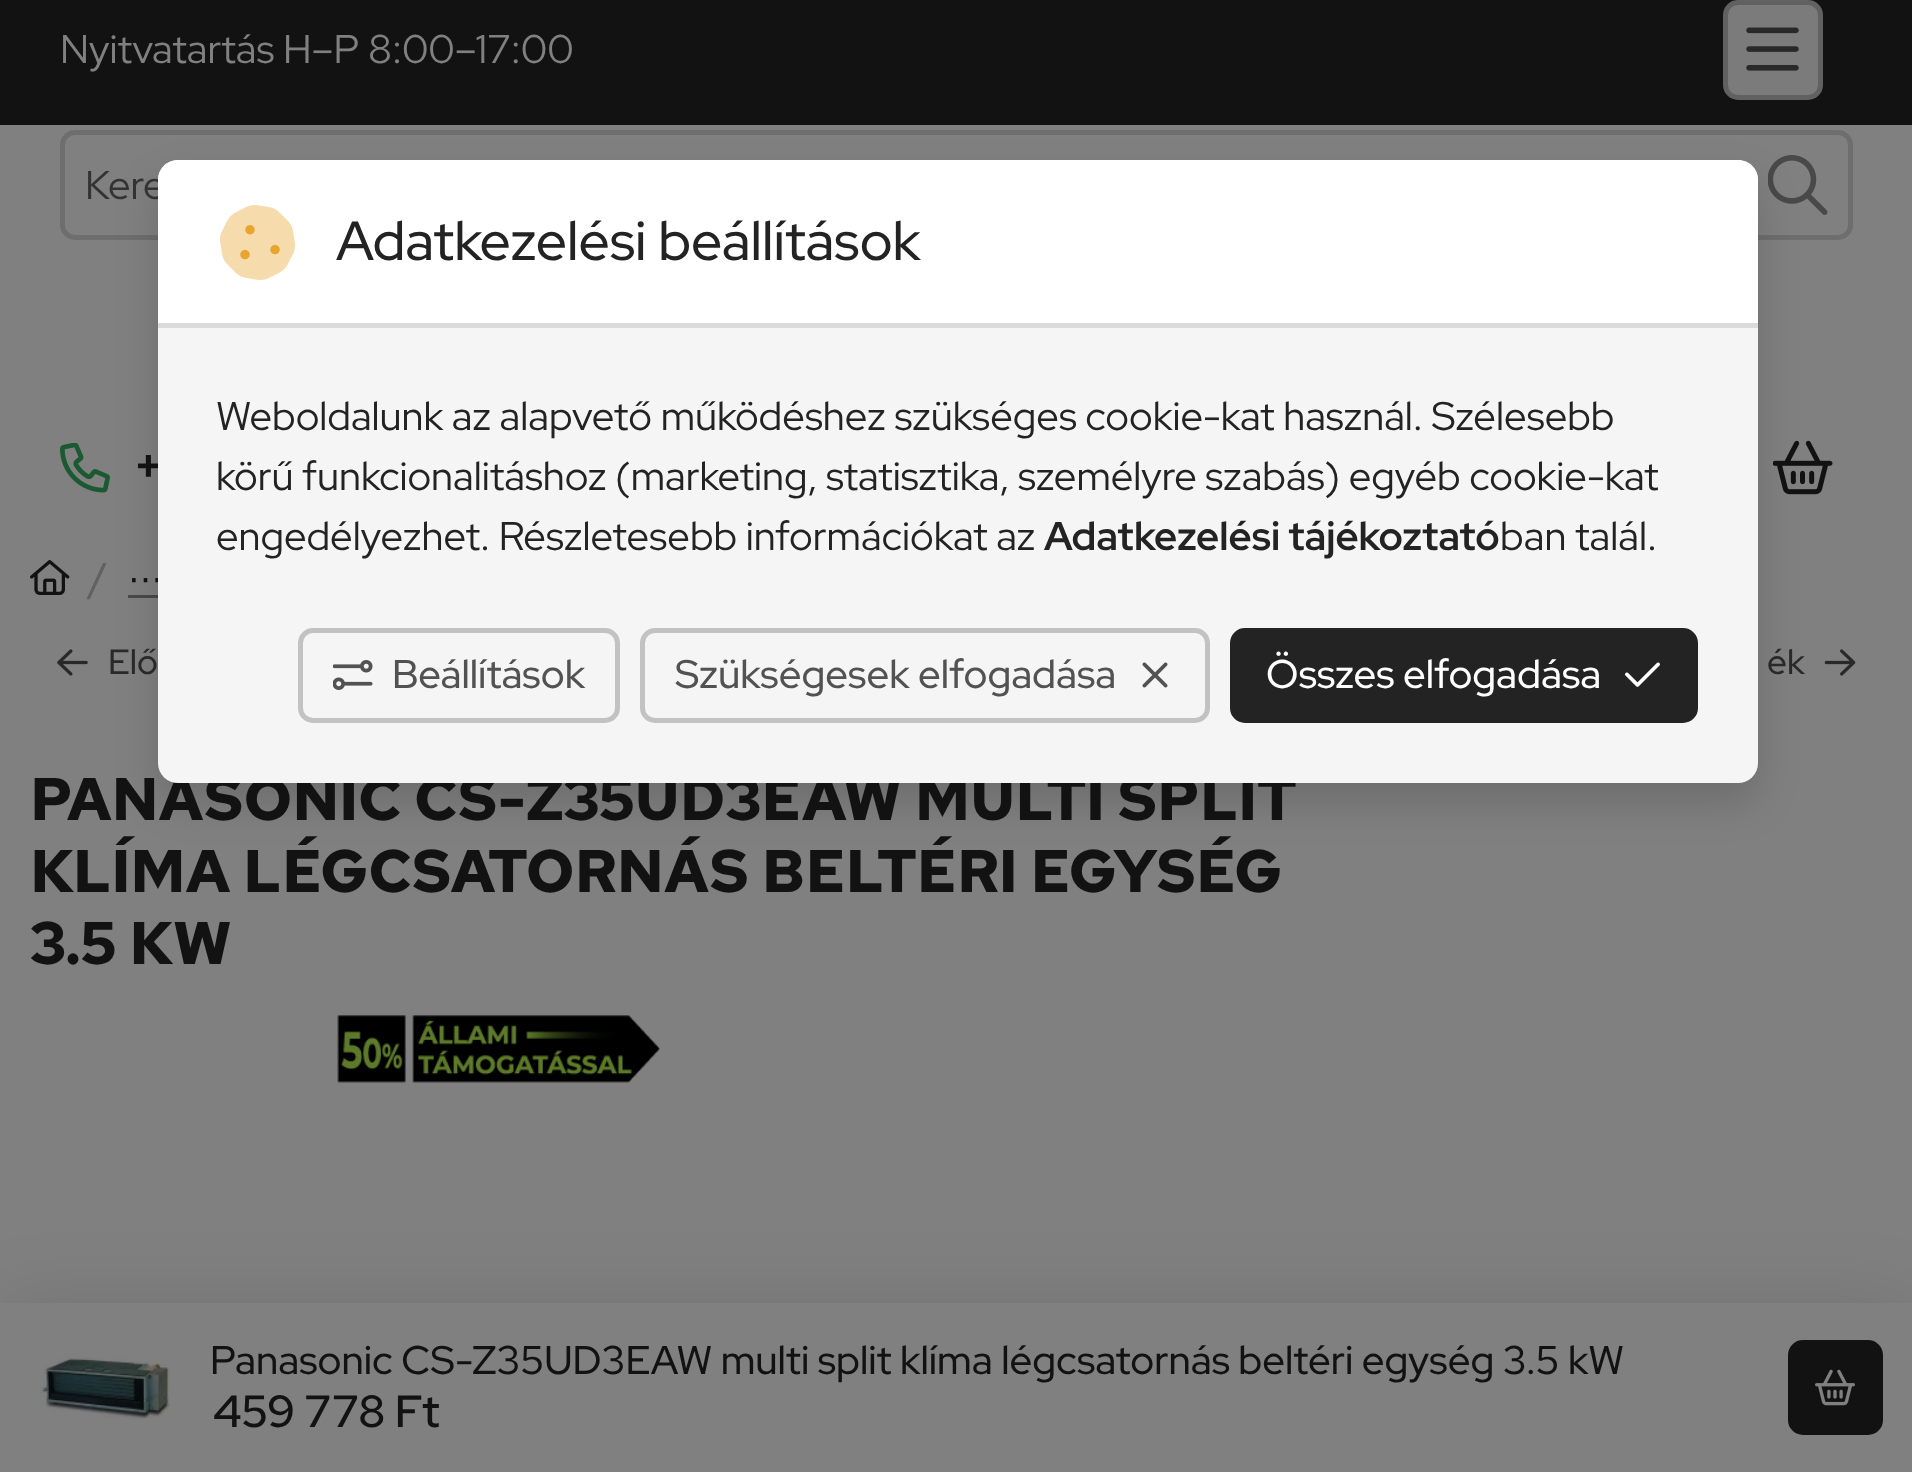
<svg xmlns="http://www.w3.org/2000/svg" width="1912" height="1472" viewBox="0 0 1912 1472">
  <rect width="100%" height="100%" fill="#808080"/>
  <path d="M0 0h1912v125H0z" fill="#121212"/>
  <rect x="1725.5" y="2.5" width="95" height="95" rx="12.5" fill="#7b7b7b" stroke="#616161" stroke-width="5"/>
  <image x="1746" y="27" width="53" height="44" href="img/1.png"/>
  <rect x="62.5" y="132.5" width="1788" height="105" rx="12.5" fill="none" stroke="#6e6e6e" stroke-width="5"/>
  <image x="1768" y="155" width="60" height="60" href="img/2.png"/>
  <image x="60" y="443" width="50" height="50" href="img/3.png"/>
  <image x="1773" y="440" width="60" height="55" href="img/4.png"/>
  <path d="M128 595h35v3H128z" fill="#494949"/>
  <rect x="158" y="180" width="1600" height="623" rx="20" fill="#00000026" filter="blur(20px)"/>
  <image x="30" y="560" width="40" height="35" href="img/9.png"/>
  <image x="57" y="649" width="31" height="27" href="img/10.png"/>
  <image x="1824" y="649" width="32" height="27" href="img/11.png"/>
  <image x="337" y="1015" width="323" height="68" href="img/12.png"/>
  <path d="M0 1303h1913v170H0z" fill="#0000001a" filter="blur(37.5px)"/>
  <path d="M0 1303h1912v169H0z" fill="#808080"/>
  <image x="40" y="1357" width="130" height="62" href="img/13.png"/>
  <rect x="1790.5" y="1342.5" width="90" height="90" rx="12.5" fill="#121212" stroke="#121212" stroke-width="5"/>
  <image x="1815" y="1369" width="40" height="37" href="img/14.png"/>
  <text x="60" y="63" font-family="Red Hat Display" font-size="40" fill="#808080">Nyitvatartás H–P 8:00–17:00</text>
  <text x="85" y="199" font-family="Red Hat Display" font-size="40" fill="#333">Kere</text>
  <text x="134" y="483" font-family="Red Hat Display" font-size="48" font-weight="800" fill="#121212">+</text>
  <text x="89" y="591" font-family="Red Hat Display" font-size="40" font-weight="500" fill="#616161">/</text>
  <text x="128" y="591" font-family="DejaVu Sans" font-size="35" fill="#121212">⋯</text>
  <g font-family="Red Hat Display" font-size="35" font-weight="500" fill="#292929">
    <text x="108" y="674">Elő</text>
    <text x="1767" y="674">ék</text>
  </g>
  <text x="30" y="820" font-family="Red Hat Text" font-size="60" font-weight="bold" fill="#121212">PANASONIC CS-Z35UD3EAW MULTI SPLIT</text>
  <rect x="158" y="160" width="1600" height="623" rx="20" fill="#f5f5f5"/>
  <rect x="1232.5" y="630.5" width="463" height="90" rx="12.5" fill="#232323" stroke="#232323" stroke-width="5"/>
  <image x="1625" y="662" width="35" height="25" href="img/8.png"/>
  <rect x="642.5" y="630.5" width="565" height="90" rx="12.5" fill="none" stroke="#c2c2c2" stroke-width="5"/>
  <image x="1142" y="662" width="26" height="26" href="img/7.png"/>
  <rect x="300.5" y="630.5" width="317" height="90" rx="12.5" fill="none" stroke="#c2c2c2" stroke-width="5"/>
  <image x="333" y="660" width="40" height="30" href="img/6.png"/>
  <text x="1266" y="688" font-family="Red Hat Display" font-size="40" font-weight="500" fill="#fff">Összes elfogadása</text>
  <g font-family="Red Hat Display" font-size="40" font-weight="500" fill="#525252">
    <text x="675" y="688">Szükségesek elfogadása</text>
    <text x="392" y="688">Beállítások</text>
  </g>
  <text x="1500" y="550" font-family="Red Hat Display" font-size="40" fill="#232323">ban talál.</text>
  <text x="1044" y="550" font-family="Red Hat Display" font-size="40" font-weight="bold" fill="#232323">Adatkezelési tájékoztató</text>
  <g font-family="Red Hat Display" font-size="40" fill="#232323">
    <text x="216" y="550">engedélyezhet. Részletesebb információkat az</text>
    <text x="216" y="490">körű funkcionalitáshoz (marketing, statisztika, személyre szabás) egyéb cookie-kat</text>
    <text x="216" y="430">Weboldalunk az alapvető működéshez szükséges cookie-kat használ. Szélesebb</text>
  </g>
  <path d="M178 160H1738C1749 160 1758 169 1758 180V328H158V180C158 169 167 160 178 160Z" fill="#fff"/>
  <image x="220" y="205" width="75" height="75" href="img/5.png"/>
  <text x="336" y="260" font-family="Red Hat Display" font-size="55" font-weight="500" fill="#232323">Adatkezelési beállítások</text>
  <path d="M158 323h1600v5H158z" fill="#dbdbdb"/>
  <g font-family="Red Hat Text" font-size="60" font-weight="bold" fill="#121212">
    <text x="30" y="892">KLÍMA LÉGCSATORNÁS BELTÉRI EGYSÉG</text>
    <text x="30" y="964">3.5 KW</text>
  </g>
  <text x="210" y="1374" font-family="Red Hat Display" font-size="40" font-weight="500" fill="#121212">Panasonic CS-Z35UD3EAW multi split klíma légcsatornás beltéri egység 3.5 kW</text>
  <text x="213" y="1427" font-family="Red Hat Display" font-size="45" font-weight="600" fill="#121212">459 778 Ft</text>
</svg>
